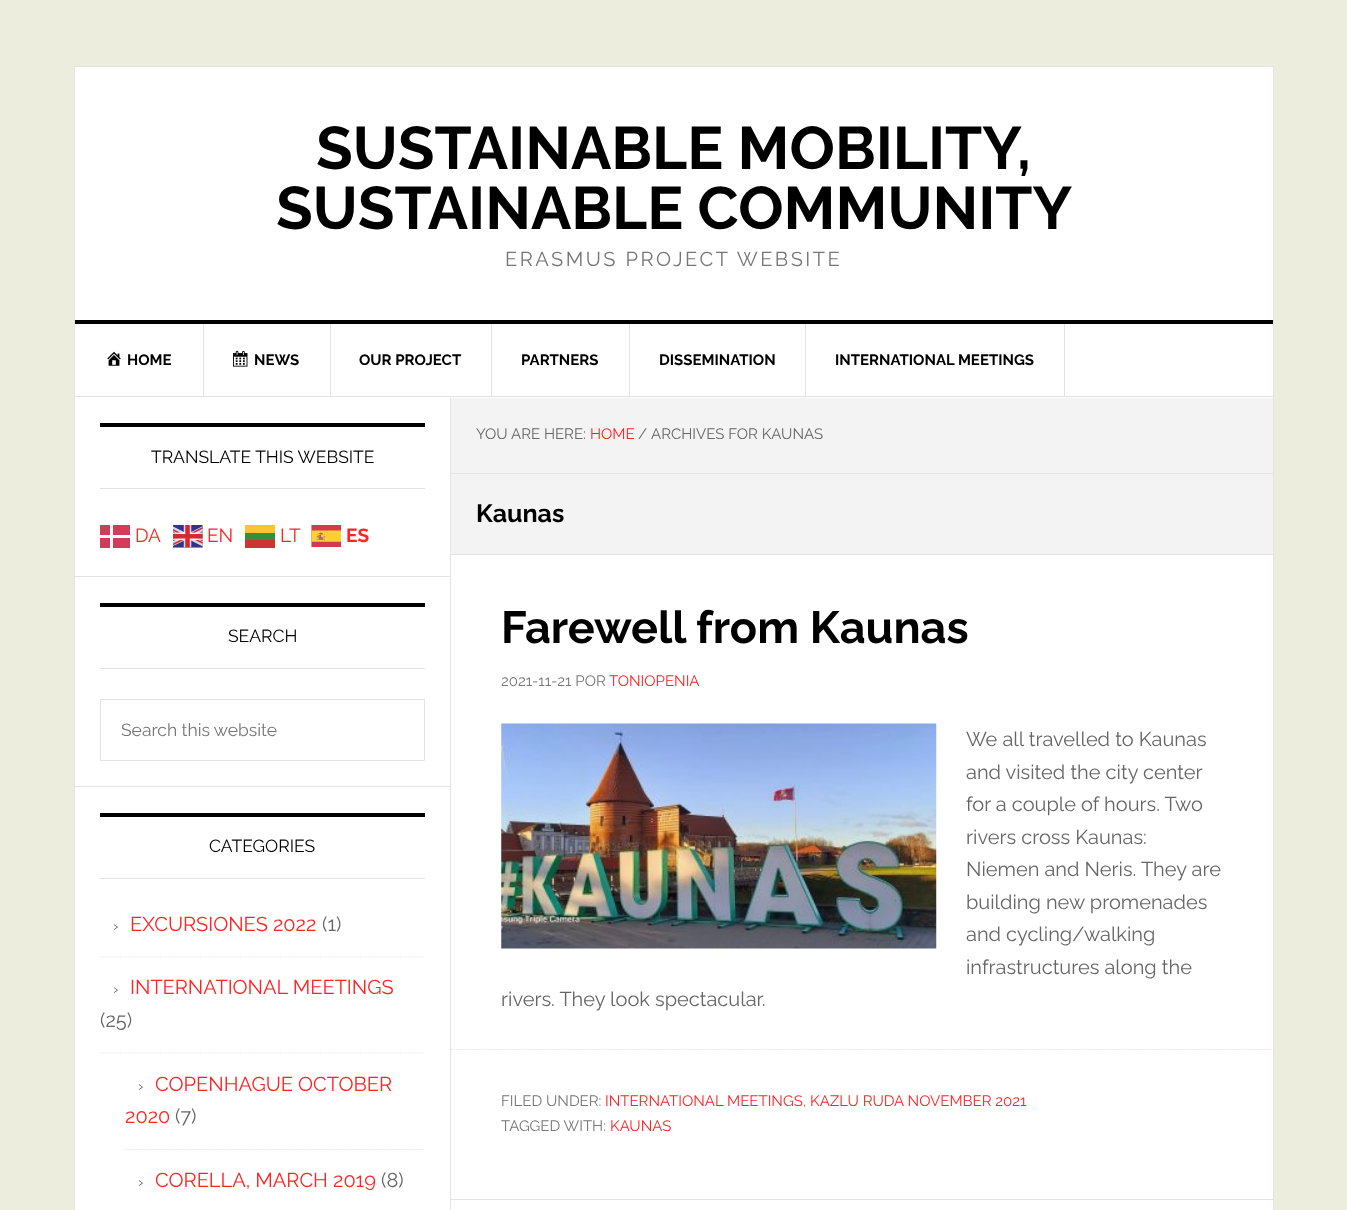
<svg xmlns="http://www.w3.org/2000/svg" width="1347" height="1210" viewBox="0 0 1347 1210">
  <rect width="100%" height="100%" fill="#ededde"/>
  <path d="M74.5 66.5h1199v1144H74.5z" fill="#fff" stroke="#e3e3e3"/>
  <path d="M75 320h1198v4H75z" fill="#000"/>
  <path d="M75 396h1198v1H75z" fill="#e3e3e3"/>
  <path d="M203 324h1v72H203z" fill="#e3e3e3"/>
  <image x="107" y="351" width="14" height="15" href="img/1.png"/>
  <path d="M330 324h1v72H330z" fill="#e3e3e3"/>
  <image x="233" y="350" width="15" height="17" href="img/2.png"/>
  <path d="M491 324h1v72H491z" fill="#e3e3e3"/>
  <path d="M629 324h1v72H629z" fill="#e3e3e3"/>
  <path d="M805 324h1v72H805z" fill="#e3e3e3"/>
  <path d="M1064 324h1v72H1064z" fill="#e3e3e3"/>
  <path d="M75 576h375v1H75z" fill="#e3e3e3"/>
  <path d="M100 423h325v4H100z" fill="#000"/>
  <path d="M100 488h325v1H100z" fill="#e3e3e3"/>
  <path d="M100 525h30v23H100z" fill="#d13d59"/>
  <path d="M110 525h3v23H110z" fill="#fff"/>
  <path d="M100 535h30v3H100z" fill="#fff"/>
  <image x="173" y="525" width="30" height="23" href="img/3.png"/>
  <path d="M245 533h30v7H245z" fill="#338f39"/>
  <path d="M245 540h30v8H245z" fill="#c33"/>
  <path d="M245 525h30v8H245z" fill="#ffc233"/>
  <image x="311" y="525" width="30" height="22" href="img/4.png"/>
  <path d="M75 786h375v1H75z" fill="#e3e3e3"/>
  <path d="M100 603h325v4H100z" fill="#000"/>
  <path d="M100 668h325v1H100z" fill="#e3e3e3"/>
  <path d="M100.5 699.5h324v61H100.5z" fill="none" stroke="#e3e3e3"/>
  <path d="M100 813h325v4H100z" fill="#000"/>
  <path d="M100 878h325v1H100z" fill="#e3e3e3"/>
  <path d="M100 957H425" fill="none" stroke="#e3e3e3" stroke-width="1.2" stroke-dasharray="1.25 1.25"/>
  <path d="M100 1053H425" fill="none" stroke="#e3e3e3" stroke-width="1.2" stroke-dasharray="1.25 1.25"/>
  <path d="M125 1149.5H425" fill="none" stroke="#e3e3e3" stroke-width="1.2" stroke-dasharray="1.25 1.25"/>
  <path d="M450 398h1v812H450z" fill="#e3e3e3"/>
  <path d="M451 398h822v75H451z" fill="#f3f3f3"/>
  <path d="M451 473h822v1H451z" fill="#e3e3e3"/>
  <path d="M451 474h822v80H451z" fill="#f3f3f3"/>
  <path d="M451 554h822v1H451z" fill="#e3e3e3"/>
  <path d="M451 1199h822v1H451z" fill="#e3e3e3"/>
  <image x="501" y="723" width="436" height="226" href="img/5.png"/>
  <path d="M451 1049.5H1272.5" fill="none" stroke="#e3e3e3" stroke-width="1.2" stroke-dasharray="1.25 1.25"/>
  <g font-family="Raleway" font-size="60" font-weight="bold" fill="#000">
    <text x="316" y="169">SUSTAINABLE MOBILITY,</text>
    <text x="276" y="229">SUSTAINABLE COMMUNITY</text>
  </g>
  <text x="505" y="266" font-family="Raleway" font-size="20" letter-spacing="2.5" fill="#767676">ERASMUS PROJECT WEBSITE</text>
  <g font-family="Raleway" font-size="15" font-weight="bold" fill="#000">
    <text x="127" y="365">HOME</text>
    <text x="254" y="365">NEWS</text>
    <text x="359" y="365">OUR PROJECT</text>
    <text x="521" y="365">PARTNERS</text>
    <text x="659" y="365">DISSEMINATION</text>
    <text x="835" y="365">INTERNATIONAL MEETINGS</text>
  </g>
  <text x="151" y="463" font-family="Raleway" font-size="17.5" fill="#000">TRANSLATE THIS WEBSITE</text>
  <g font-family="Raleway" font-size="19" fill="#ff2323">
    <text x="135" y="542">DA</text>
    <text x="207" y="542">EN</text>
    <text x="280" y="542">LT</text>
  </g>
  <text x="346" y="542" font-family="Raleway" font-size="19" font-weight="bold" fill="#ff2323">ES</text>
  <text x="228" y="642" font-family="Raleway" font-size="17.5" fill="#000">SEARCH</text>
  <text x="121" y="736" font-family="Raleway" font-size="17.5" fill="#767676">Search this website</text>
  <text x="209" y="852" font-family="Raleway" font-size="17.5" fill="#000">CATEGORIES</text>
  <text x="113" y="931" font-family="Raleway" font-size="15" fill="#666">›</text>
  <text x="130" y="931" font-family="Raleway" font-size="20" fill="#ff2323">EXCURSIONES 2022</text>
  <text x="322" y="931" font-family="Raleway" font-size="20" fill="#666">(1)</text>
  <text x="113" y="994" font-family="Raleway" font-size="15" fill="#666">›</text>
  <text x="130" y="994" font-family="Raleway" font-size="20" fill="#ff2323">INTERNATIONAL MEETINGS</text>
  <text x="100" y="1027" font-family="Raleway" font-size="20" fill="#666">(25)</text>
  <text x="138" y="1091" font-family="Raleway" font-size="15" fill="#666">›</text>
  <g font-family="Raleway" font-size="20" fill="#ff2323">
    <text x="155" y="1091">COPENHAGUE OCTOBER</text>
    <text x="125" y="1123">2020</text>
  </g>
  <text x="175" y="1123" font-family="Raleway" font-size="20" fill="#666">(7)</text>
  <text x="138" y="1187" font-family="Raleway" font-size="15" fill="#666">›</text>
  <text x="155" y="1187" font-family="Raleway" font-size="20" fill="#ff2323">CORELLA, MARCH 2019</text>
  <text x="381" y="1187" font-family="Raleway" font-size="20" fill="#666">(8)</text>
  <text x="476" y="439" font-family="Raleway" font-size="15" fill="#666">YOU ARE HERE:</text>
  <text x="590" y="439" font-family="Raleway" font-size="15" fill="#ff2323">HOME</text>
  <g font-family="Raleway" font-size="15" fill="#666">
    <text x="638" y="439">/</text>
    <text x="651" y="439">ARCHIVES FOR KAUNAS</text>
  </g>
  <text x="476" y="522" font-family="Raleway" font-size="25" font-weight="bold" fill="#000">Kaunas</text>
  <text x="501" y="643" font-family="Raleway" font-size="45" font-weight="bold" fill="#000">Farewell from Kaunas</text>
  <text x="501" y="686" font-family="Raleway" font-size="15" fill="#767676">2021-11-21 POR</text>
  <text x="609" y="686" font-family="Raleway" font-size="15" fill="#ff2323">TONIOPENIA</text>
  <g font-family="Raleway" font-size="20" fill="#666">
    <text x="966" y="746">We all travelled to Kaunas</text>
    <text x="966" y="779">and visited the city center</text>
    <text x="966" y="811">for a couple of hours. Two</text>
    <text x="966" y="844">rivers cross Kaunas:</text>
    <text x="966" y="876">Niemen and Neris. They are</text>
    <text x="966" y="909">building new promenades</text>
    <text x="966" y="941">and cycling/walking</text>
    <text x="966" y="974">infrastructures along the</text>
    <text x="501" y="1006">rivers. They look spectacular.</text>
  </g>
  <text x="501" y="1106" font-family="Raleway" font-size="15" fill="#767676">FILED UNDER:</text>
  <text x="605" y="1106" font-family="Raleway" font-size="15" fill="#ff2323">INTERNATIONAL MEETINGS</text>
  <text x="803" y="1106" font-family="Raleway" font-size="15" fill="#767676">,</text>
  <text x="810" y="1106" font-family="Raleway" font-size="15" fill="#ff2323">KAZLU RUDA NOVEMBER 2021</text>
  <text x="501" y="1131" font-family="Raleway" font-size="15" fill="#767676">TAGGED WITH:</text>
  <text x="610" y="1131" font-family="Raleway" font-size="15" fill="#ff2323">KAUNAS</text>
</svg>
